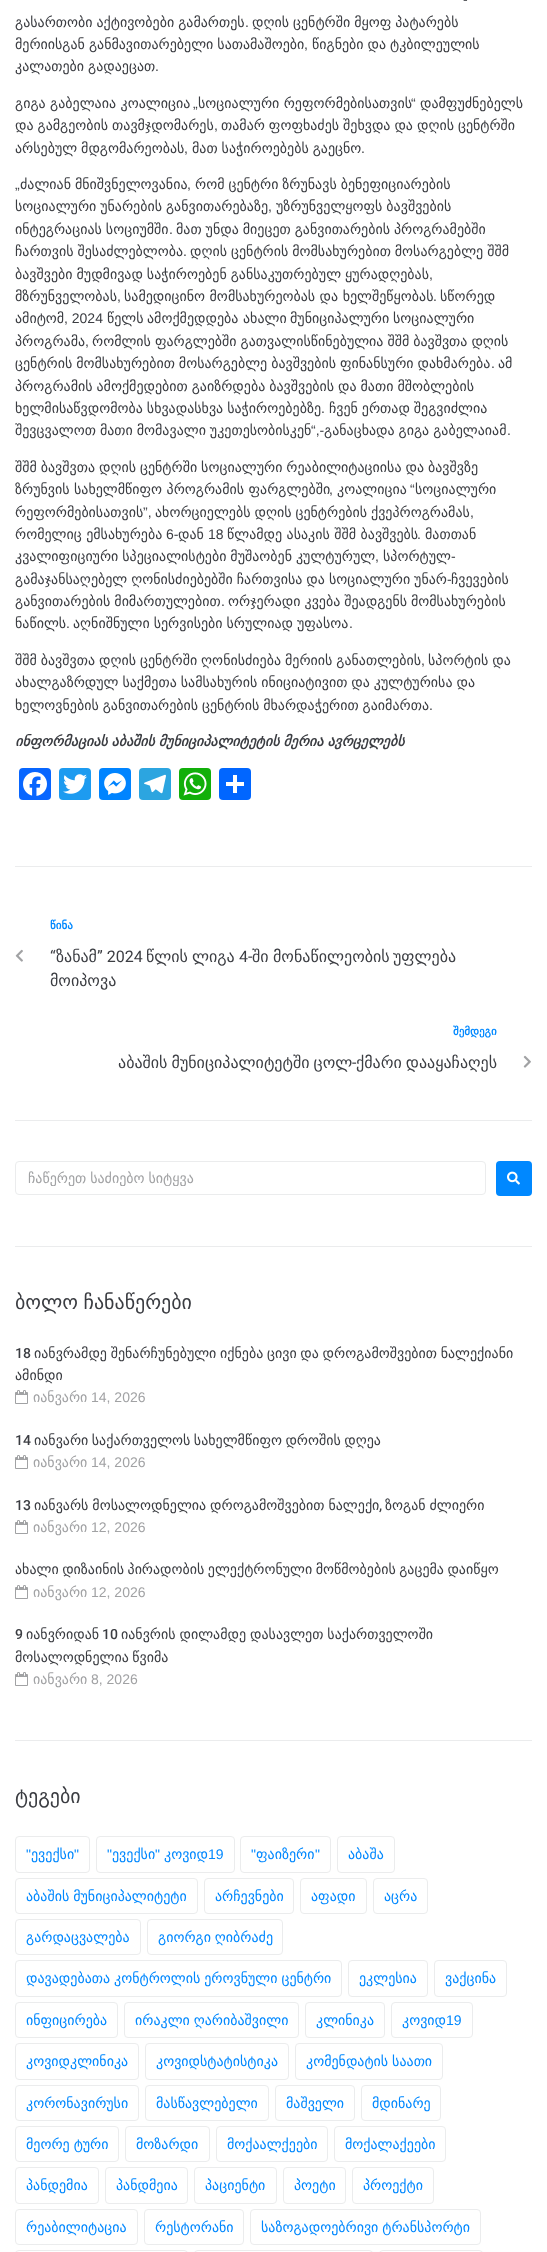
<svg xmlns="http://www.w3.org/2000/svg" width="547" height="2252" viewBox="0 0 547 2252">
  <defs>
    <clipPath id="clip1"><path d="M28 1170h441v16H28z"/></clipPath>
  </defs>
  <rect width="100%" height="100%" fill="#fff"/>
  <path d="M15 866h517v1H15z" fill="#ebeced"/>
  <rect x="19" y="768" width="32" height="32" rx="4" fill="#0866ff"/>
  <image x="23" y="772" width="24" height="24" href="img/1.png"/>
  <rect x="59" y="768" width="32" height="32" rx="4" fill="#1d9bf0"/>
  <image x="63" y="774" width="24" height="20" href="img/2.png"/>
  <rect x="99" y="768" width="32" height="32" rx="4" fill="#0084ff"/>
  <image x="104" y="773" width="22" height="22" href="img/3.png"/>
  <rect x="139" y="768" width="32" height="32" rx="4" fill="#2ca5e0"/>
  <image x="144" y="774" width="22" height="20" href="img/4.png"/>
  <rect x="179" y="768" width="32" height="32" rx="4" fill="#12af0a"/>
  <image x="183" y="772" width="24" height="24" href="img/5.png"/>
  <rect x="219" y="768" width="32" height="32" rx="4" fill="#0166ff"/>
  <path d="M233 775h4v18H233z" fill="#fff"/>
  <path d="M226 782h18v4H226z" fill="#fff"/>
  <path d="M15 1120h517v1H15z" fill="#ebeced"/>
  <image x="15" y="949" width="8" height="13" href="img/6.png"/>
  <image x="523" y="1055" width="8" height="13" href="img/7.png"/>
  <rect x="15.5" y="1161.5" width="470" height="33" rx="3.5" fill="none" stroke="#ebeced"/>
  <rect x="496" y="1161" width="36" height="35" rx="4" fill="#08f"/>
  <image x="507" y="1171" width="13" height="14" href="img/8.png"/>
  <path d="M15 1246h517v1H15z" fill="#ebeced"/>
  <image x="15" y="1390" width="13" height="14" href="img/9.png"/>
  <image x="15" y="1455" width="13" height="14" href="img/9.png"/>
  <image x="15" y="1520" width="13" height="14" href="img/9.png"/>
  <image x="15" y="1585" width="13" height="14" href="img/9.png"/>
  <image x="15" y="1672" width="13" height="14" href="img/9.png"/>
  <path d="M15 1740h517v1H15z" fill="#ebeced"/>
  <rect x="15.5" y="1836.5" width="74" height="36" rx="3.5" fill="none" stroke="#ebeced"/>
  <rect x="96.5" y="1836.5" width="138" height="36" rx="3.5" fill="none" stroke="#ebeced"/>
  <rect x="240.5" y="1836.5" width="90" height="36" rx="3.5" fill="none" stroke="#ebeced"/>
  <rect x="337.5" y="1836.5" width="57" height="36" rx="3.5" fill="none" stroke="#ebeced"/>
  <rect x="15.5" y="1878.5" width="182" height="35" rx="3.5" fill="none" stroke="#ebeced"/>
  <rect x="204.5" y="1878.5" width="89" height="35" rx="3.5" fill="none" stroke="#ebeced"/>
  <rect x="300.5" y="1878.5" width="66" height="35" rx="3.5" fill="none" stroke="#ebeced"/>
  <rect x="373.5" y="1878.5" width="54" height="35" rx="3.5" fill="none" stroke="#ebeced"/>
  <rect x="15.5" y="1919.5" width="125" height="35" rx="3.5" fill="none" stroke="#ebeced"/>
  <rect x="147.5" y="1919.5" width="135" height="35" rx="3.5" fill="none" stroke="#ebeced"/>
  <rect x="15.5" y="1960.5" width="326" height="36" rx="3.5" fill="none" stroke="#ebeced"/>
  <rect x="348.5" y="1960.5" width="79" height="36" rx="3.5" fill="none" stroke="#ebeced"/>
  <rect x="434.5" y="1960.5" width="72" height="36" rx="3.5" fill="none" stroke="#ebeced"/>
  <rect x="15.5" y="2002.5" width="102" height="35" rx="3.5" fill="none" stroke="#ebeced"/>
  <rect x="124.5" y="2002.5" width="174" height="35" rx="3.5" fill="none" stroke="#ebeced"/>
  <rect x="305.5" y="2002.5" width="79" height="35" rx="3.5" fill="none" stroke="#ebeced"/>
  <rect x="391.5" y="2002.5" width="81" height="35" rx="3.5" fill="none" stroke="#ebeced"/>
  <rect x="15.5" y="2043.5" width="123" height="36" rx="3.5" fill="none" stroke="#ebeced"/>
  <rect x="145.5" y="2043.5" width="143" height="36" rx="3.5" fill="none" stroke="#ebeced"/>
  <rect x="295.5" y="2043.5" width="147" height="36" rx="3.5" fill="none" stroke="#ebeced"/>
  <rect x="15.5" y="2085.5" width="123" height="35" rx="3.5" fill="none" stroke="#ebeced"/>
  <rect x="145.5" y="2085.5" width="123" height="35" rx="3.5" fill="none" stroke="#ebeced"/>
  <rect x="275.5" y="2085.5" width="79" height="35" rx="3.5" fill="none" stroke="#ebeced"/>
  <rect x="361.5" y="2085.5" width="79" height="35" rx="3.5" fill="none" stroke="#ebeced"/>
  <rect x="15.5" y="2126.5" width="103" height="35" rx="3.5" fill="none" stroke="#ebeced"/>
  <rect x="125.5" y="2126.5" width="84" height="35" rx="3.5" fill="none" stroke="#ebeced"/>
  <rect x="216.5" y="2126.5" width="111" height="35" rx="3.5" fill="none" stroke="#ebeced"/>
  <rect x="334.5" y="2126.5" width="111" height="35" rx="3.5" fill="none" stroke="#ebeced"/>
  <rect x="15.5" y="2167.5" width="83" height="36" rx="3.5" fill="none" stroke="#ebeced"/>
  <rect x="105.5" y="2167.5" width="82" height="36" rx="3.5" fill="none" stroke="#ebeced"/>
  <rect x="194.5" y="2167.5" width="82" height="36" rx="3.5" fill="none" stroke="#ebeced"/>
  <rect x="283.5" y="2167.5" width="62" height="36" rx="3.5" fill="none" stroke="#ebeced"/>
  <rect x="352.5" y="2167.5" width="81" height="36" rx="3.5" fill="none" stroke="#ebeced"/>
  <rect x="15.5" y="2209.5" width="122" height="35" rx="3.5" fill="none" stroke="#ebeced"/>
  <rect x="144.5" y="2209.5" width="99" height="35" rx="3.5" fill="none" stroke="#ebeced"/>
  <rect x="250.5" y="2209.5" width="230" height="35" rx="3.5" fill="none" stroke="#ebeced"/>
  <rect x="15.5" y="2250.5" width="172" height="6" rx="3.5" fill="none" stroke="#ebeced"/>
  <rect x="194.5" y="2250.5" width="178" height="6" rx="3.5" fill="none" stroke="#ebeced"/>
  <rect x="379.5" y="2250.5" width="103" height="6" rx="3.5" fill="none" stroke="#ebeced"/>
  <text x="463" y="4" font-family="Liberation Sans" font-size="14" fill="#3b3d42">-</text>
  <text x="15" y="27" word-spacing="-0.5" font-family="DejaVu Sans" font-size="14" fill="#3b3d42">გასართობი აქტივობები გამართეს</text>
  <text x="245" y="27" font-family="Liberation Sans" font-size="14" fill="#3b3d42">.</text>
  <g font-family="DejaVu Sans" font-size="14" fill="#3b3d42">
    <text x="252" y="27" word-spacing="-0.5">დღის ცენტრში მყოფ პატარებს</text>
    <text x="15" y="49" word-spacing="-0.5">მერიისგან განმავითარებელი სათამაშოები</text>
  </g>
  <text x="304" y="49" font-family="Liberation Sans" font-size="14" fill="#3b3d42">,</text>
  <g font-family="DejaVu Sans" font-size="14" fill="#3b3d42">
    <text x="312" y="49" word-spacing="-0.5">წიგნები და ტკბილეულის</text>
    <text x="15" y="71" word-spacing="-0.5">კალათები გადაეცათ</text>
  </g>
  <text x="155" y="71" font-family="Liberation Sans" font-size="14" fill="#3b3d42">.</text>
  <g font-family="DejaVu Sans" font-size="14" fill="#3b3d42">
    <text x="15" y="108">გიგა გაბელაია კოალიცია</text>
    <text x="198" y="108">სოციალური რეფორმებისათვის</text>
  </g>
  <text x="411" y="108" font-family="Liberation Sans" font-size="14" fill="#3b3d42">“</text>
  <text x="420" y="108" font-family="DejaVu Sans" font-size="14" fill="#3b3d42">დამფუძნებელს</text>
  <text x="193" y="108" font-family="Liberation Sans" font-size="14" fill="#3b3d42">„</text>
  <text x="15" y="130" word-spacing="-0.5" font-family="DejaVu Sans" font-size="14" fill="#3b3d42">და გამგეობის თავმჯდომარეს</text>
  <text x="214" y="130" font-family="Liberation Sans" font-size="14" fill="#3b3d42">,</text>
  <g font-family="DejaVu Sans" font-size="14" fill="#3b3d42">
    <text x="221" y="130" word-spacing="-0.5">თამარ ფოფხაძეს შეხვდა და დღის ცენტრში</text>
    <text x="15" y="153" word-spacing="-0.5">არსებულ მდგომარეობას</text>
  </g>
  <text x="184" y="153" font-family="Liberation Sans" font-size="14" fill="#3b3d42">,</text>
  <text x="192" y="153" word-spacing="-0.5" font-family="DejaVu Sans" font-size="14" fill="#3b3d42">მათ საჭიროებებს გაეცნო</text>
  <g font-family="Liberation Sans" font-size="14" fill="#3b3d42">
    <text x="361" y="153">.</text>
    <text x="15" y="189">„</text>
  </g>
  <text x="20" y="189" word-spacing="-0.5" font-family="DejaVu Sans" font-size="14" fill="#3b3d42">ძალიან მნიშვნელოვანია</text>
  <text x="187" y="189" font-family="Liberation Sans" font-size="14" fill="#3b3d42">,</text>
  <g font-family="DejaVu Sans" font-size="14" fill="#3b3d42">
    <text x="195" y="189" word-spacing="-0.5">რომ ცენტრი ზრუნავს ბენეფიციარების</text>
    <text x="15" y="211" word-spacing="-0.5">სოციალური უნარების განვითარებაზე</text>
  </g>
  <text x="268" y="211" font-family="Liberation Sans" font-size="14" fill="#3b3d42">,</text>
  <g font-family="DejaVu Sans" font-size="14" fill="#3b3d42">
    <text x="276" y="211" word-spacing="-0.5">უზრუნველყოფს ბავშვების</text>
    <text x="15" y="234" word-spacing="-0.5">ინტეგრაციას სოციუმში</text>
  </g>
  <text x="169" y="234" font-family="Liberation Sans" font-size="14" fill="#3b3d42">.</text>
  <g font-family="DejaVu Sans" font-size="14" fill="#3b3d42">
    <text x="176" y="234" word-spacing="-0.5">მათ უნდა მიეცეთ განვითარების პროგრამებში</text>
    <text x="15" y="256" word-spacing="-0.5">ჩართვის შესაძლებლობა</text>
  </g>
  <text x="183" y="256" font-family="Liberation Sans" font-size="14" fill="#3b3d42">.</text>
  <g font-family="DejaVu Sans" font-size="14" fill="#3b3d42">
    <text x="190" y="256" word-spacing="-0.5">დღის ცენტრის მომსახურებით მოსარგებლე შშმ</text>
    <text x="15" y="279" word-spacing="-0.5">ბავშვები მუდმივად საჭიროებენ განსაკუთრებულ ყურადღებას</text>
  </g>
  <text x="429" y="279" font-family="Liberation Sans" font-size="14" fill="#3b3d42">,</text>
  <text x="15" y="301" font-family="DejaVu Sans" font-size="14" fill="#3b3d42">მზრუნველობას</text>
  <text x="117" y="301" font-family="Liberation Sans" font-size="14" fill="#3b3d42">,</text>
  <text x="124" y="301" font-family="DejaVu Sans" font-size="14" fill="#3b3d42">სამედიცინო მომსახურეობას და ხელშეწყობას</text>
  <text x="433" y="301" font-family="Liberation Sans" font-size="14" fill="#3b3d42">.</text>
  <g font-family="DejaVu Sans" font-size="14" fill="#3b3d42">
    <text x="440" y="301">სწორედ</text>
    <text x="15" y="323">ამიტომ</text>
  </g>
  <text x="64" y="323" font-family="Liberation Sans" font-size="14" fill="#3b3d42">, 2024</text>
  <g font-family="DejaVu Sans" font-size="14" fill="#3b3d42">
    <text x="107" y="323">წელს</text>
    <text x="147" y="323">ამოქმედდება</text>
    <text x="243" y="323">ახალი</text>
    <text x="290" y="323">მუნიციპალური</text>
    <text x="393" y="323">სოციალური</text>
    <text x="15" y="346">პროგრამა</text>
  </g>
  <text x="85" y="346" font-family="Liberation Sans" font-size="14" fill="#3b3d42">,</text>
  <g font-family="DejaVu Sans" font-size="14" fill="#3b3d42">
    <text x="92" y="346" word-spacing="-0.5">რომლის ფარგლებში გათვალისწინებულია შშმ ბავშვთა დღის</text>
    <text x="15" y="368" word-spacing="-0.5">ცენტრის მომსახურებით მოსარგებლე ბავშვების ფინანსური დახმარება</text>
  </g>
  <text x="491" y="368" font-family="Liberation Sans" font-size="14" fill="#3b3d42">.</text>
  <g font-family="DejaVu Sans" font-size="14" fill="#3b3d42">
    <text x="498" y="368">ამ</text>
    <text x="15" y="391" word-spacing="-0.5">პროგრამის ამოქმედებით გაიზრდება ბავშვების და მათი მშობლების</text>
    <text x="15" y="413" word-spacing="-0.5">ხელმისაწვდომობა სხვადასხვა საჭიროებებზე</text>
  </g>
  <text x="321" y="413" font-family="Liberation Sans" font-size="14" fill="#3b3d42">.</text>
  <g font-family="DejaVu Sans" font-size="14" fill="#3b3d42">
    <text x="329" y="413" word-spacing="-0.5">ჩვენ ერთად შეგვიძლია</text>
    <text x="15" y="435" word-spacing="-0.5">შევცვალოთ მათი მომავალი უკეთესობისკენ</text>
  </g>
  <text x="311" y="435" font-family="Liberation Sans" font-size="14" fill="#3b3d42">“,-</text>
  <text x="324" y="435" word-spacing="-0.5" font-family="DejaVu Sans" font-size="14" fill="#3b3d42">განაცხადა გიგა გაბელაიამ</text>
  <text x="507" y="435" font-family="Liberation Sans" font-size="14" fill="#3b3d42">.</text>
  <g font-family="DejaVu Sans" font-size="14" fill="#3b3d42">
    <text x="15" y="472" word-spacing="-0.5">შშმ ბავშვთა დღის ცენტრში სოციალური რეაბილიტაციისა და ბავშვზე</text>
    <text x="15" y="494">ზრუნვის სახელმწიფო პროგრამის ფარგლებში</text>
  </g>
  <text x="329" y="494" font-family="Liberation Sans" font-size="14" fill="#3b3d42">,</text>
  <text x="337" y="494" font-family="DejaVu Sans" font-size="14" fill="#3b3d42">კოალიცია</text>
  <text x="410" y="494" font-family="Liberation Sans" font-size="14" fill="#3b3d42">“</text>
  <g font-family="DejaVu Sans" font-size="14" fill="#3b3d42">
    <text x="415" y="494">სოციალური</text>
    <text x="15" y="517">რეფორმებისათვის</text>
  </g>
  <text x="143" y="517" font-family="Liberation Sans" font-size="14" fill="#3b3d42">”,</text>
  <text x="155" y="517" word-spacing="-0.5" font-family="DejaVu Sans" font-size="14" fill="#3b3d42">ახორციელებს დღის ცენტრების ქვეპროგრამას</text>
  <text x="470" y="517" font-family="Liberation Sans" font-size="14" fill="#3b3d42">,</text>
  <text x="15" y="539" font-family="DejaVu Sans" font-size="14" fill="#3b3d42">რომელიც ემსახურება</text>
  <text x="166" y="539" font-family="Liberation Sans" font-size="14" fill="#3b3d42">6-</text>
  <text x="178" y="539" font-family="DejaVu Sans" font-size="14" fill="#3b3d42">დან</text>
  <text x="208" y="539" font-family="Liberation Sans" font-size="14" fill="#3b3d42">18</text>
  <text x="227" y="539" font-family="DejaVu Sans" font-size="14" fill="#3b3d42">წლამდე ასაკის შშმ ბავშვებს</text>
  <text x="417" y="539" font-family="Liberation Sans" font-size="14" fill="#3b3d42">.</text>
  <g font-family="DejaVu Sans" font-size="14" fill="#3b3d42">
    <text x="425" y="539">მათთან</text>
    <text x="15" y="561" word-spacing="-0.5">კვალიფიციური სპეციალისტები მუშაობენ კულტურულ</text>
    <text x="383" y="561">სპორტულ</text>
  </g>
  <g font-family="Liberation Sans" font-size="14" fill="#3b3d42">
    <text x="451" y="561">-</text>
    <text x="375" y="561">,</text>
  </g>
  <text x="15" y="584" word-spacing="-0.5" font-family="DejaVu Sans" font-size="14" fill="#3b3d42">გამაჯანსაღებელ ღონისძიებებში ჩართვისა და სოციალური უნარ</text>
  <text x="447" y="584" font-family="Liberation Sans" font-size="14" fill="#3b3d42">-</text>
  <g font-family="DejaVu Sans" font-size="14" fill="#3b3d42">
    <text x="451" y="584">ჩვევების</text>
    <text x="15" y="606" word-spacing="-0.5">განვითარების მიმართულებით</text>
  </g>
  <text x="221" y="606" font-family="Liberation Sans" font-size="14" fill="#3b3d42">.</text>
  <g font-family="DejaVu Sans" font-size="14" fill="#3b3d42">
    <text x="228" y="606" word-spacing="-0.5">ორჯერადი კვება შეადგენს მომსახურების</text>
    <text x="15" y="628">ნაწილს</text>
  </g>
  <text x="66" y="628" font-family="Liberation Sans" font-size="14" fill="#3b3d42">.</text>
  <text x="73" y="628" word-spacing="-0.5" font-family="DejaVu Sans" font-size="14" fill="#3b3d42">აღნიშნული სერვისები სრულიად უფასოა</text>
  <text x="349" y="628" font-family="Liberation Sans" font-size="14" fill="#3b3d42">.</text>
  <text x="15" y="665" word-spacing="-0.5" font-family="DejaVu Sans" font-size="14" fill="#3b3d42">შშმ ბავშვთა დღის ცენტრში ღონისძიება მერიის განათლების</text>
  <text x="421" y="665" font-family="Liberation Sans" font-size="14" fill="#3b3d42">,</text>
  <g font-family="DejaVu Sans" font-size="14" fill="#3b3d42">
    <text x="428" y="665" word-spacing="-0.5">სპორტის და</text>
    <text x="15" y="687" word-spacing="-0.5">ახალგაზრდულ საქმეთა სამსახურის ინიციატივით და კულტურისა და</text>
    <text x="15" y="710" word-spacing="-0.5">ხელოვნების განვითარების ცენტრის მხარდაჭერით გაიმართა</text>
  </g>
  <text x="429" y="710" font-family="Liberation Sans" font-size="14" fill="#3b3d42">.</text>
  <text x="15" y="746" word-spacing="-0.5" font-family="DejaVu Sans" font-size="14" font-weight="bold" font-style="italic" fill="#3b3d42">ინფორმაციას აბაშის მუნიციპალიტეტის მერია ავრცელებს</text>
  <text x="50" y="929" font-family="DejaVu Sans" font-size="11" font-weight="bold" fill="#08f">წინა</text>
  <text x="50" y="962" font-family="Roboto" font-size="16" fill="#3b3d42">“</text>
  <text x="56" y="962" font-family="DejaVu Sans" font-size="16" fill="#3b3d42">ზანამ</text>
  <text x="97" y="962" font-family="Roboto" font-size="16" fill="#3b3d42">” 2024</text>
  <g font-family="DejaVu Sans" font-size="16" fill="#3b3d42">
    <text x="146" y="962">წლის</text>
    <text x="192" y="962">ლიგა</text>
  </g>
  <text x="239" y="962" font-family="Roboto" font-size="16" fill="#3b3d42">4-</text>
  <g font-family="DejaVu Sans" font-size="16" fill="#3b3d42">
    <text x="252" y="962">ში</text>
    <text x="273" y="962">მონაწილეობის</text>
    <text x="393" y="962">უფლება</text>
    <text x="50" y="986">მოიპოვა</text>
  </g>
  <text x="453" y="1035" font-family="DejaVu Sans" font-size="11" font-weight="bold" fill="#08f">შემდეგი</text>
  <text x="118" y="1068" word-spacing="-1" font-family="DejaVu Sans" font-size="16" fill="#3b3d42">აბაშის მუნიციპალიტეტში ცოლ</text>
  <text x="352" y="1068" font-family="Roboto" font-size="16" fill="#3b3d42">-</text>
  <text x="356" y="1068" word-spacing="-1" font-family="DejaVu Sans" font-size="16" fill="#3b3d42">ქმარი დააყაჩაღეს</text>
  <g clip-path="url(#clip1)">
    <text x="28" y="1183" word-spacing="-0.5" font-family="DejaVu Sans" font-size="14" fill="#a1a2a4">ჩაწერეთ საძიებო სიტყვა</text>
  </g>
  <text x="15" y="1309" word-spacing="-1" font-family="DejaVu Sans" font-size="20" fill="#3b3d42">ბოლო ჩანაწერები</text>
  <text x="15" y="1358" font-family="Roboto" font-size="14" font-weight="500" fill="#3b3d42">18</text>
  <g font-family="DejaVu Sans" font-size="14" fill="#3b3d42">
    <text x="34" y="1358" word-spacing="-0.75">იანვრამდე შენარჩუნებული იქნება ცივი და დროგამოშვებით ნალექიანი</text>
    <text x="15" y="1380">ამინდი</text>
  </g>
  <text x="33" y="1402" font-family="DejaVu Sans" font-size="14" fill="#a1a2a4">იანვარი</text>
  <text x="91" y="1402" font-family="Liberation Sans" font-size="14" fill="#a1a2a4">14, 2026</text>
  <text x="15" y="1445" font-family="Roboto" font-size="14" font-weight="500" fill="#3b3d42">14</text>
  <text x="34" y="1445" word-spacing="-1" font-family="DejaVu Sans" font-size="14" fill="#3b3d42">იანვარი საქართველოს სახელმწიფო დროშის დღეა</text>
  <text x="33" y="1467" font-family="DejaVu Sans" font-size="14" fill="#a1a2a4">იანვარი</text>
  <text x="91" y="1467" font-family="Liberation Sans" font-size="14" fill="#a1a2a4">14, 2026</text>
  <text x="15" y="1510" font-family="Roboto" font-size="14" font-weight="500" fill="#3b3d42">13</text>
  <text x="34" y="1510" word-spacing="-0.5" font-family="DejaVu Sans" font-size="14" fill="#3b3d42">იანვარს მოსალოდნელია დროგამოშვებით ნალექი</text>
  <text x="379" y="1510" font-family="Roboto" font-size="14" font-weight="500" fill="#3b3d42">,</text>
  <text x="385" y="1510" word-spacing="-0.5" font-family="DejaVu Sans" font-size="14" fill="#3b3d42">ზოგან ძლიერი</text>
  <text x="33" y="1532" font-family="DejaVu Sans" font-size="14" fill="#a1a2a4">იანვარი</text>
  <text x="91" y="1532" font-family="Liberation Sans" font-size="14" fill="#a1a2a4">12, 2026</text>
  <text x="15" y="1574" word-spacing="-1" font-family="DejaVu Sans" font-size="14" fill="#3b3d42">ახალი დიზაინის პირადობის ელექტრონული მოწმობების გაცემა დაიწყო</text>
  <text x="33" y="1597" font-family="DejaVu Sans" font-size="14" fill="#a1a2a4">იანვარი</text>
  <text x="91" y="1597" font-family="Liberation Sans" font-size="14" fill="#a1a2a4">12, 2026</text>
  <text x="15" y="1639" font-family="Roboto" font-size="14" font-weight="500" fill="#3b3d42">9</text>
  <text x="26" y="1639" font-family="DejaVu Sans" font-size="14" fill="#3b3d42">იანვრიდან</text>
  <text x="102" y="1639" font-family="Roboto" font-size="14" font-weight="500" fill="#3b3d42">10</text>
  <g font-family="DejaVu Sans" font-size="14" fill="#3b3d42">
    <text x="121" y="1639" word-spacing="-0.5">იანვრის დილამდე დასავლეთ საქართველოში</text>
    <text x="15" y="1662" word-spacing="-1">მოსალოდნელია წვიმა</text>
  </g>
  <text x="33" y="1684" font-family="DejaVu Sans" font-size="14" fill="#a1a2a4">იანვარი</text>
  <text x="91" y="1684" font-family="Liberation Sans" font-size="14" fill="#a1a2a4">8, 2026</text>
  <text x="15" y="1803" font-family="DejaVu Sans" font-size="20" fill="#3b3d42">ტეგები</text>
  <text x="26" y="1859" font-family="Liberation Sans" font-size="14" fill="#08f">"</text>
  <text x="31" y="1859" font-family="DejaVu Sans" font-size="14" fill="#08f">ევექსი</text>
  <g font-family="Liberation Sans" font-size="14" fill="#08f">
    <text x="74" y="1859">"</text>
    <text x="107" y="1859">"</text>
  </g>
  <text x="112" y="1859" font-family="DejaVu Sans" font-size="14" fill="#08f">ევექსი</text>
  <text x="155" y="1859" font-family="Liberation Sans" font-size="14" fill="#08f">"</text>
  <text x="164" y="1859" font-family="DejaVu Sans" font-size="14" fill="#08f">კოვიდ</text>
  <g font-family="Liberation Sans" font-size="14" fill="#08f">
    <text x="208" y="1859">19</text>
    <text x="251" y="1859">"</text>
  </g>
  <text x="256" y="1859" font-family="DejaVu Sans" font-size="14" fill="#08f">ფაიზერი</text>
  <text x="315" y="1859" font-family="Liberation Sans" font-size="14" fill="#08f">"</text>
  <g font-family="DejaVu Sans" font-size="14" fill="#08f">
    <text x="348" y="1859">აბაშა</text>
    <text x="26" y="1901" word-spacing="-0.5">აბაშის მუნიციპალიტეტი</text>
    <text x="215" y="1901">არჩევნები</text>
    <text x="311" y="1901">აფადი</text>
    <text x="384" y="1901">აცრა</text>
    <text x="26" y="1942">გარდაცვალება</text>
    <text x="158" y="1942" word-spacing="-0.5">გიორგი ღიბრაძე</text>
    <text x="26" y="1983" word-spacing="-0.5">დავადებათა კონტროლის ეროვნული ცენტრი</text>
    <text x="359" y="1983">ეკლესია</text>
    <text x="445" y="1983">ვაქცინა</text>
    <text x="26" y="2025">ინფიცირება</text>
    <text x="135" y="2025" word-spacing="-0.5">ირაკლი ღარიბაშვილი</text>
    <text x="316" y="2025">კლინიკა</text>
    <text x="402" y="2025">კოვიდ</text>
  </g>
  <text x="446" y="2025" font-family="Liberation Sans" font-size="14" fill="#08f">19</text>
  <g font-family="DejaVu Sans" font-size="14" fill="#08f">
    <text x="26" y="2066">კოვიდკლინიკა</text>
    <text x="156" y="2066">კოვიდსტატისტიკა</text>
    <text x="306" y="2066" word-spacing="-0.5">კომენდატის საათი</text>
    <text x="26" y="2108">კორონავირუსი</text>
    <text x="156" y="2108">მასწავლებელი</text>
    <text x="286" y="2108">მაშველი</text>
    <text x="372" y="2108">მდინარე</text>
    <text x="26" y="2149" word-spacing="-0.5">მეორე ტური</text>
    <text x="136" y="2149">მოზარდი</text>
    <text x="227" y="2149">მოქაალქეები</text>
    <text x="345" y="2149">მოქალაქეები</text>
    <text x="26" y="2190">პანდემია</text>
    <text x="116" y="2190">პანდმეია</text>
    <text x="205" y="2190">პაციენტი</text>
    <text x="294" y="2190">პოეტი</text>
    <text x="363" y="2190">პროექტი</text>
    <text x="26" y="2232">რეაბილიტაცია</text>
    <text x="155" y="2232">რესტორანი</text>
    <text x="261" y="2232" word-spacing="-0.5">საზოგადოებრივი ტრანსპორტი</text>
  </g>
</svg>
